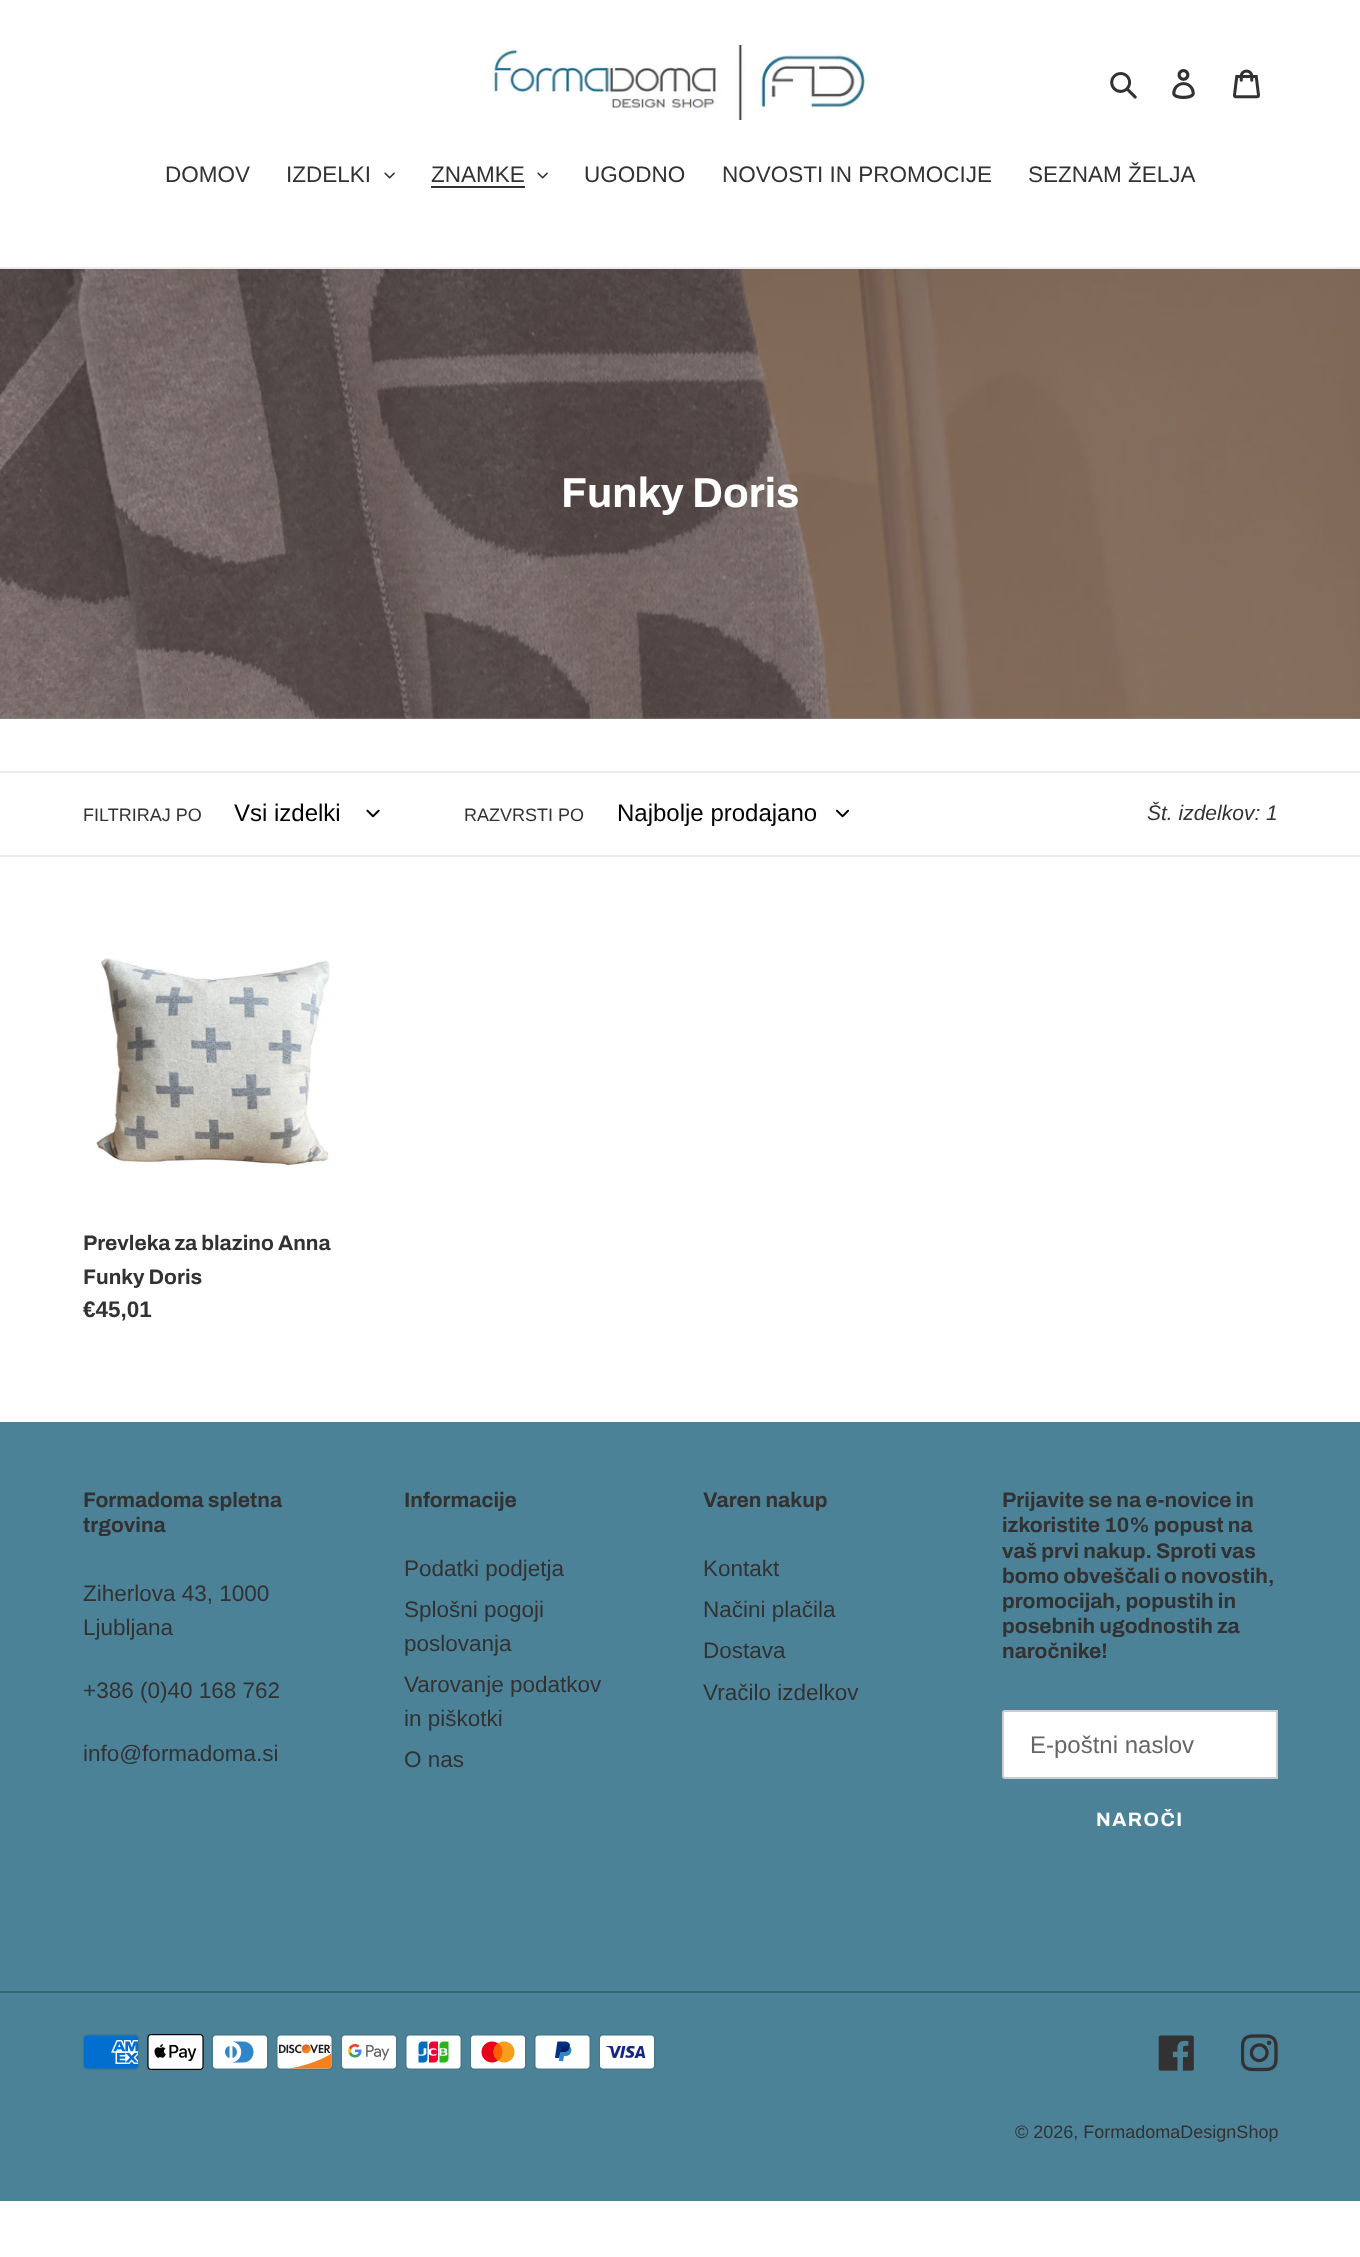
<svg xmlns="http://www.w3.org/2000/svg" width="1360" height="2257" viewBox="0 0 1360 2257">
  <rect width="100%" height="100%" fill="#fff"/>
  <path d="M0 717h1360v2H0z" fill="#a49b9b"/>
  <image x="492" y="45" width="375" height="75" href="img/1.png"/>
  <image x="1110" y="72" width="27" height="27" href="img/2.png"/>
  <image x="1172" y="69" width="23" height="30" href="img/3.png"/>
  <image x="1233" y="69" width="27" height="30" href="img/4.png"/>
  <path d="M0 267h1360v2H0z" fill="#ebebeb"/>
  <image x="384" y="172" width="11" height="7" href="img/5.png"/>
  <path d="M431 186h94v2H431z" fill="#333232"/>
  <image x="537" y="172" width="11" height="7" href="img/5.png"/>
  <image x="0" y="269" width="1360" height="450" href="img/6.png"/>
  <path d="M0 771h1360v2H0z" fill="#ebebeb"/>
  <path d="M0 855h1360v2H0z" fill="#ebebeb"/>
  <image x="366" y="809" width="14" height="9" href="img/7.png"/>
  <image x="836" y="809" width="13" height="9" href="img/8.png"/>
  <image x="94" y="958" width="236" height="209" href="img/9.png"/>
  <path d="M0 1422h1360v779H0z" fill="#4c8297"/>
  <path d="M1005 1711H1277V1778H1005C1004 1778 1003 1777 1003 1776V1713C1003 1712 1004 1711 1005 1711Z" fill="#fff" stroke="#ccc" stroke-width="2"/>
  <path d="M0 1991h1360v2H0z" fill="#3b6575"/>
  <image x="83" y="2034" width="57" height="36" href="img/10.png"/>
  <image x="147" y="2034" width="57" height="36" href="img/11.png"/>
  <image x="212" y="2034" width="57" height="36" href="img/12.png"/>
  <image x="276" y="2034" width="57" height="36" href="img/13.png"/>
  <image x="341" y="2034" width="57" height="36" href="img/14.png"/>
  <image x="405" y="2034" width="57" height="36" href="img/15.png"/>
  <image x="470" y="2034" width="57" height="36" href="img/16.png"/>
  <image x="534" y="2034" width="57" height="36" href="img/17.png"/>
  <image x="599" y="2034" width="57" height="36" href="img/18.png"/>
  <image x="1158" y="2035" width="36" height="36" href="img/19.png"/>
  <image x="1241" y="2034" width="37" height="38" href="img/20.png"/>
  <g font-family="Arimo" font-size="22.5" fill="#333232">
    <text x="165" y="182">DOMOV</text>
    <text x="286" y="182">IZDELKI</text>
    <text x="431" y="182">ZNAMKE</text>
    <text x="584" y="182">UGODNO</text>
    <text x="722" y="182">NOVOSTI IN PROMOCIJE</text>
    <text x="1028" y="182">SEZNAM ŽELJA</text>
  </g>
  <text x="561" y="507" font-family="Archivo" font-size="42" font-weight="bold" fill="#fff">Funky Doris</text>
  <text x="83" y="821" font-family="Arimo" font-size="18" fill="#333232">FILTRIRAJ PO</text>
  <text x="234" y="821" font-family="Arimo" font-size="24" fill="#000">Vsi izdelki</text>
  <text x="464" y="821" font-family="Arimo" font-size="18" fill="#333232">RAZVRSTI PO</text>
  <text x="617" y="821" font-family="Arimo" font-size="24" fill="#000">Najbolje prodajano</text>
  <text x="1147" y="820" font-family="Arimo" font-size="21" font-style="italic" fill="#333232">Št. izdelkov: 1</text>
  <g font-family="Archivo" font-size="21" font-weight="bold" fill="#333232">
    <text x="83" y="1250">Prevleka za blazino Anna</text>
    <text x="83" y="1284">Funky Doris</text>
  </g>
  <text x="83" y="1317" font-family="Arimo" font-size="22.5" font-weight="bold" fill="#333232">€45,01</text>
  <g font-family="Archivo" font-size="21" font-weight="bold" fill="#333232">
    <text x="83" y="1507">Formadoma spletna</text>
    <text x="83" y="1532">trgovina</text>
  </g>
  <g font-family="Arimo" font-size="22.5" fill="#333232">
    <text x="83" y="1601">Ziherlova 43, 1000</text>
    <text x="83" y="1635">Ljubljana</text>
    <text x="83" y="1698">+386 (0)40 168 762</text>
    <text x="83" y="1761">info@formadoma.si</text>
  </g>
  <text x="404" y="1507" font-family="Archivo" font-size="21" font-weight="bold" fill="#333232">Informacije</text>
  <g font-family="Arimo" font-size="22.5" fill="#333232">
    <text x="404" y="1576">Podatki podjetja</text>
    <text x="404" y="1617">Splošni pogoji</text>
    <text x="404" y="1651">poslovanja</text>
    <text x="404" y="1692">Varovanje podatkov</text>
    <text x="404" y="1726">in piškotki</text>
    <text x="404" y="1767">O nas</text>
  </g>
  <text x="703" y="1507" font-family="Archivo" font-size="21" font-weight="bold" fill="#333232">Varen nakup</text>
  <g font-family="Arimo" font-size="22.5" fill="#333232">
    <text x="703" y="1576">Kontakt</text>
    <text x="703" y="1617">Načini plačila</text>
    <text x="703" y="1658">Dostava</text>
    <text x="703" y="1700">Vračilo izdelkov</text>
  </g>
  <g font-family="Archivo" font-size="21" font-weight="bold" fill="#333232">
    <text x="1002" y="1507">Prijavite se na e-novice in</text>
    <text x="1002" y="1532">izkoristite 10% popust na</text>
    <text x="1002" y="1558">vaš prvi nakup. Sproti vas</text>
    <text x="1002" y="1583">bomo obveščali o novostih,</text>
    <text x="1002" y="1608">promocijah, popustih in</text>
    <text x="1002" y="1633">posebnih ugodnostih za</text>
    <text x="1002" y="1658">naročnike!</text>
  </g>
  <text x="1030" y="1753" font-family="Arimo" font-size="24" fill="#666">E-poštni naslov</text>
  <text x="1096" y="1826" font-family="Archivo" font-size="19.5" font-weight="bold" letter-spacing="1.5" fill="#fff">NAROČI</text>
  <text x="1015" y="2138" font-family="Arimo" font-size="18" fill="#333232">© 2026, FormadomaDesignShop</text>
</svg>
